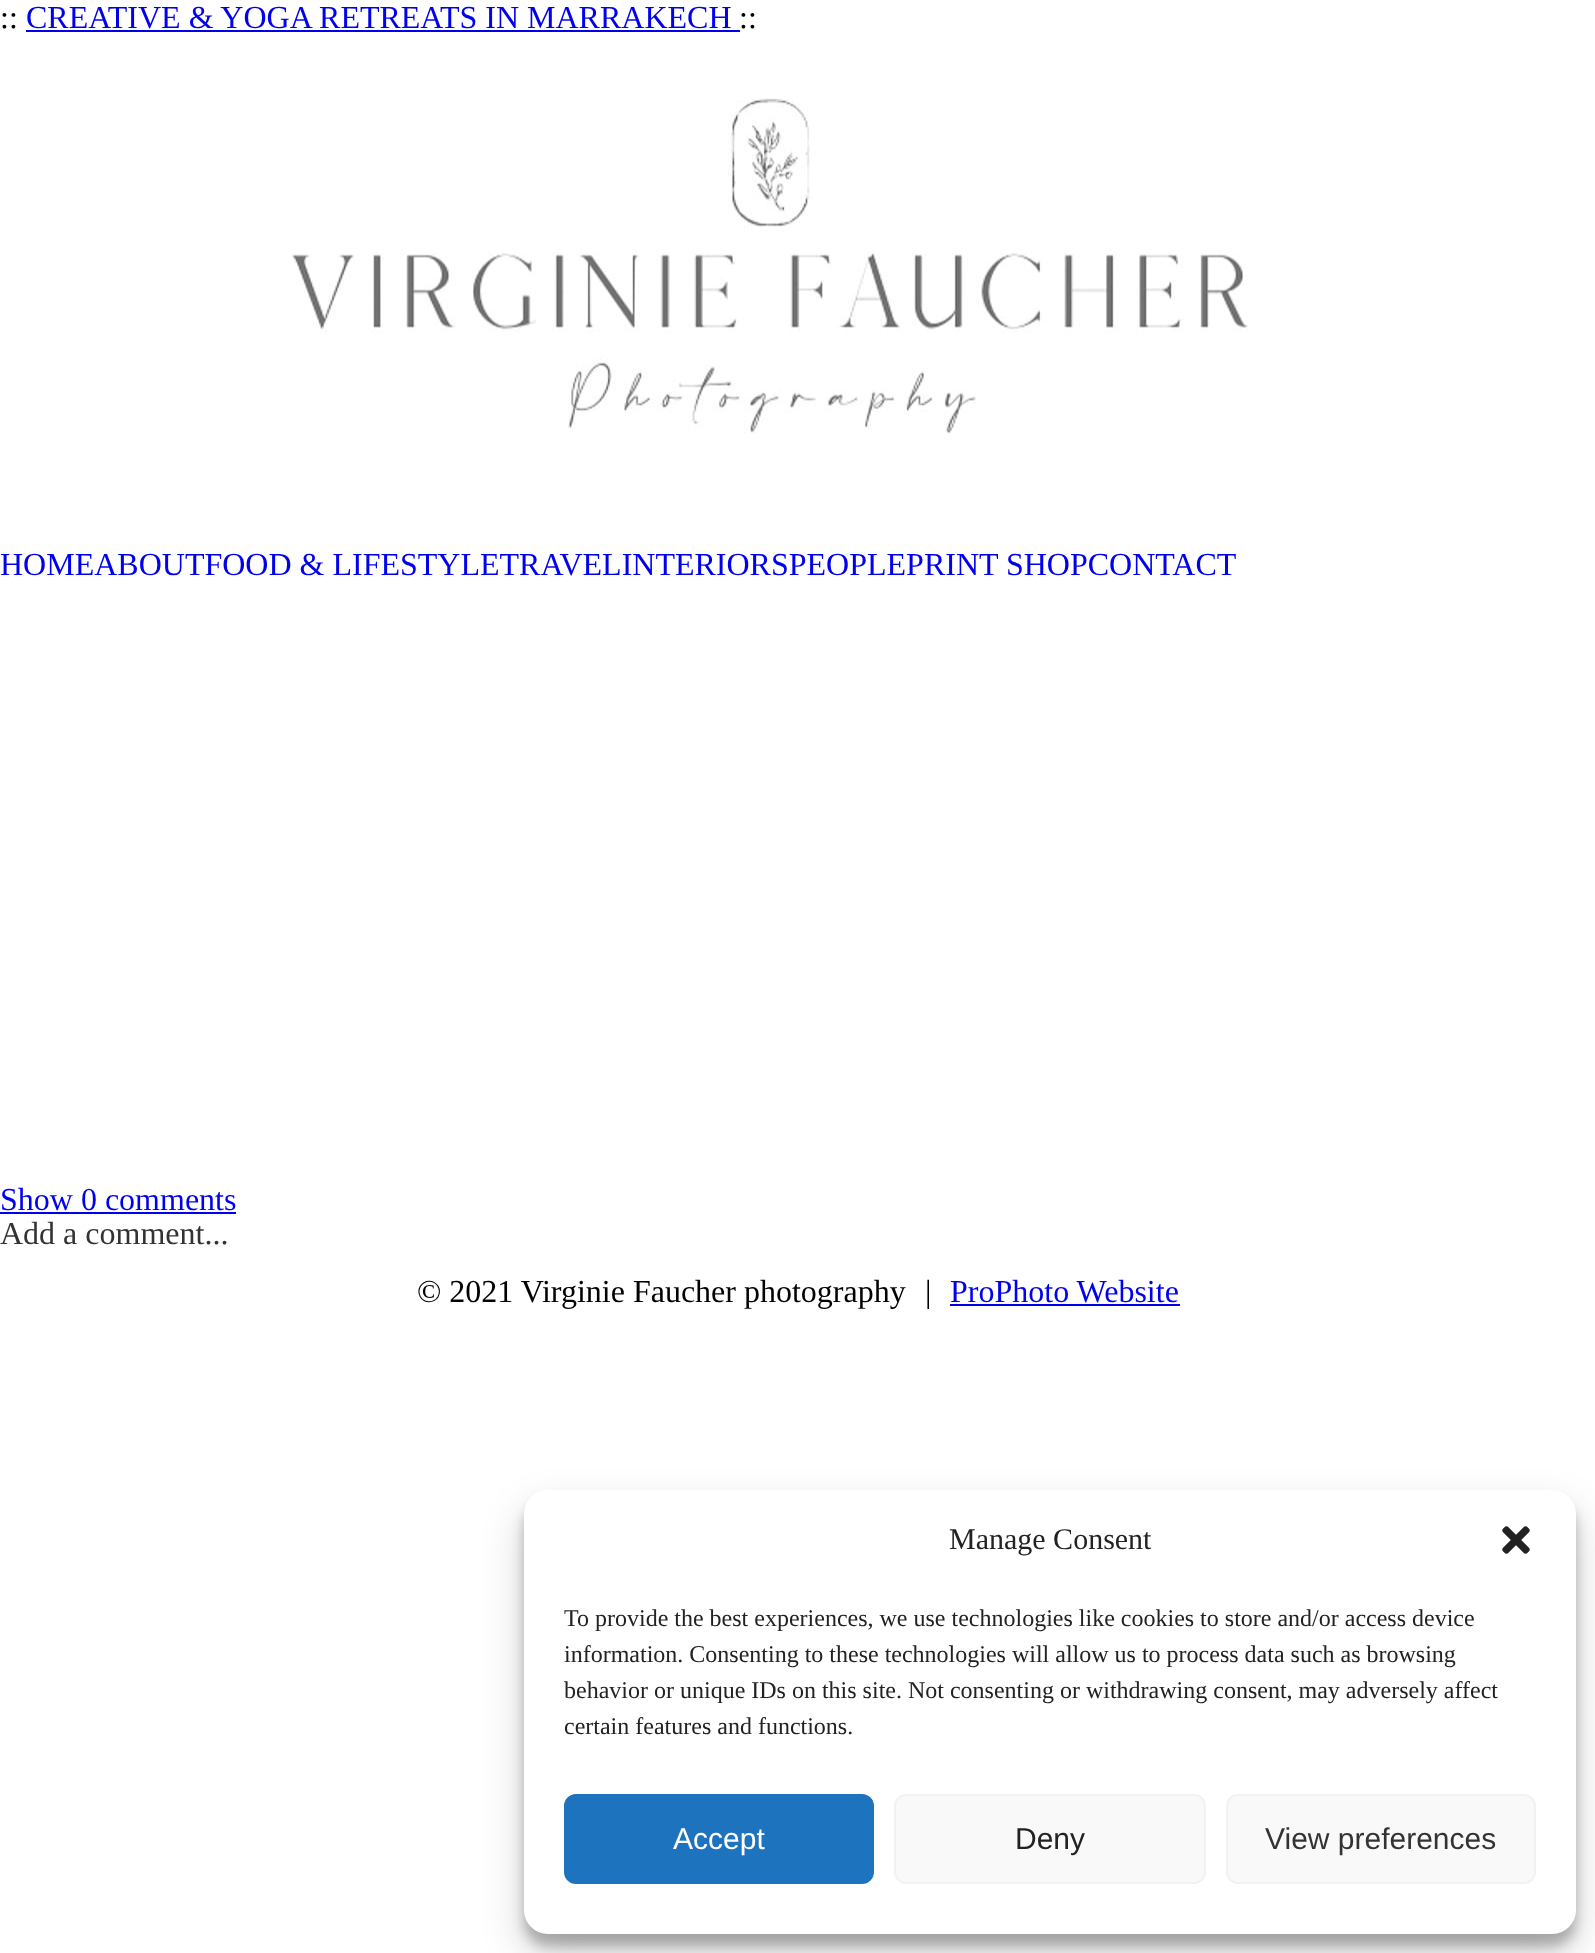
<svg xmlns="http://www.w3.org/2000/svg" width="1595" height="1953" viewBox="0 0 1595 1953">
  <rect width="100%" height="100%" fill="#fff"/>
  <path d="M26 30h714v2H26z" fill="#00e"/>
  <image x="292" y="98" width="956" height="336" href="img/1.png"/>
  <path d="M0 1212h236v2H0z" fill="#00e"/>
  <path d="M950 1304h230v2H950z" fill="#00e"/>
  <rect x="524" y="1502" width="1052" height="444" rx="24" fill="#0000003b" filter="blur(6px)"/>
  <rect x="524" y="1510" width="1052" height="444" rx="24" fill="#00000030" filter="blur(20px)"/>
  <rect x="524" y="1490" width="1052" height="444" rx="24" fill="#fff"/>
  <image x="1502" y="1526" width="28" height="28" href="img/2.png"/>
  <rect x="565" y="1795" width="308" height="88" rx="11" fill="#1e73be" stroke="#1e73be" stroke-width="2"/>
  <rect x="895" y="1795" width="310" height="88" rx="11" fill="#f9f9f9" stroke="#f2f2f2" stroke-width="2"/>
  <rect x="1227" y="1795" width="308" height="88" rx="11" fill="#f9f9f9" stroke="#f2f2f2" stroke-width="2"/>
  <text x="0" y="28" font-family="Liberation Serif" font-size="32" fill="#000">::</text>
  <text x="26" y="28" font-family="Liberation Serif" font-size="32" fill="#00e">CREATIVE &amp; YOGA RETREATS IN MARRAKECH</text>
  <text x="739" y="28" font-family="Liberation Serif" font-size="32" fill="#000">::</text>
  <g font-family="Liberation Serif" font-size="32" fill="#00e">
    <text x="0" y="575">HOMEABOUTFOOD &amp; LIFESTYLETRAVELINTERIORSPEOPLEPRINT SHOPCONTACT</text>
    <text x="0" y="1210">Show 0 comments</text>
  </g>
  <text x="0" y="1244" font-family="Liberation Serif" font-size="32" fill="#333">Add a comment...</text>
  <g font-family="Liberation Serif" font-size="32" fill="#000">
    <text x="417" y="1302">© 2021 Virginie Faucher photography</text>
    <text x="925" y="1302">|</text>
  </g>
  <text x="950" y="1302" font-family="Liberation Serif" font-size="32" fill="#00e">ProPhoto Website</text>
  <text x="949" y="1549" font-family="Liberation Serif" font-size="30" fill="#222">Manage Consent</text>
  <g font-family="Liberation Serif" font-size="24" fill="#222">
    <text x="564" y="1626">To provide the best experiences, we use technologies like cookies to store and/or access device</text>
    <text x="564" y="1662">information. Consenting to these technologies will allow us to process data such as browsing</text>
    <text x="564" y="1698">behavior or unique IDs on this site. Not consenting or withdrawing consent, may adversely affect</text>
    <text x="564" y="1734">certain features and functions.</text>
  </g>
  <text x="673" y="1849" font-family="Liberation Sans" font-size="30" fill="#fff">Accept</text>
  <text x="1015" y="1849" font-family="Liberation Sans" font-size="30" fill="#222">Deny</text>
  <text x="1265" y="1849" font-family="Liberation Sans" font-size="30" fill="#333">View preferences</text>
</svg>
